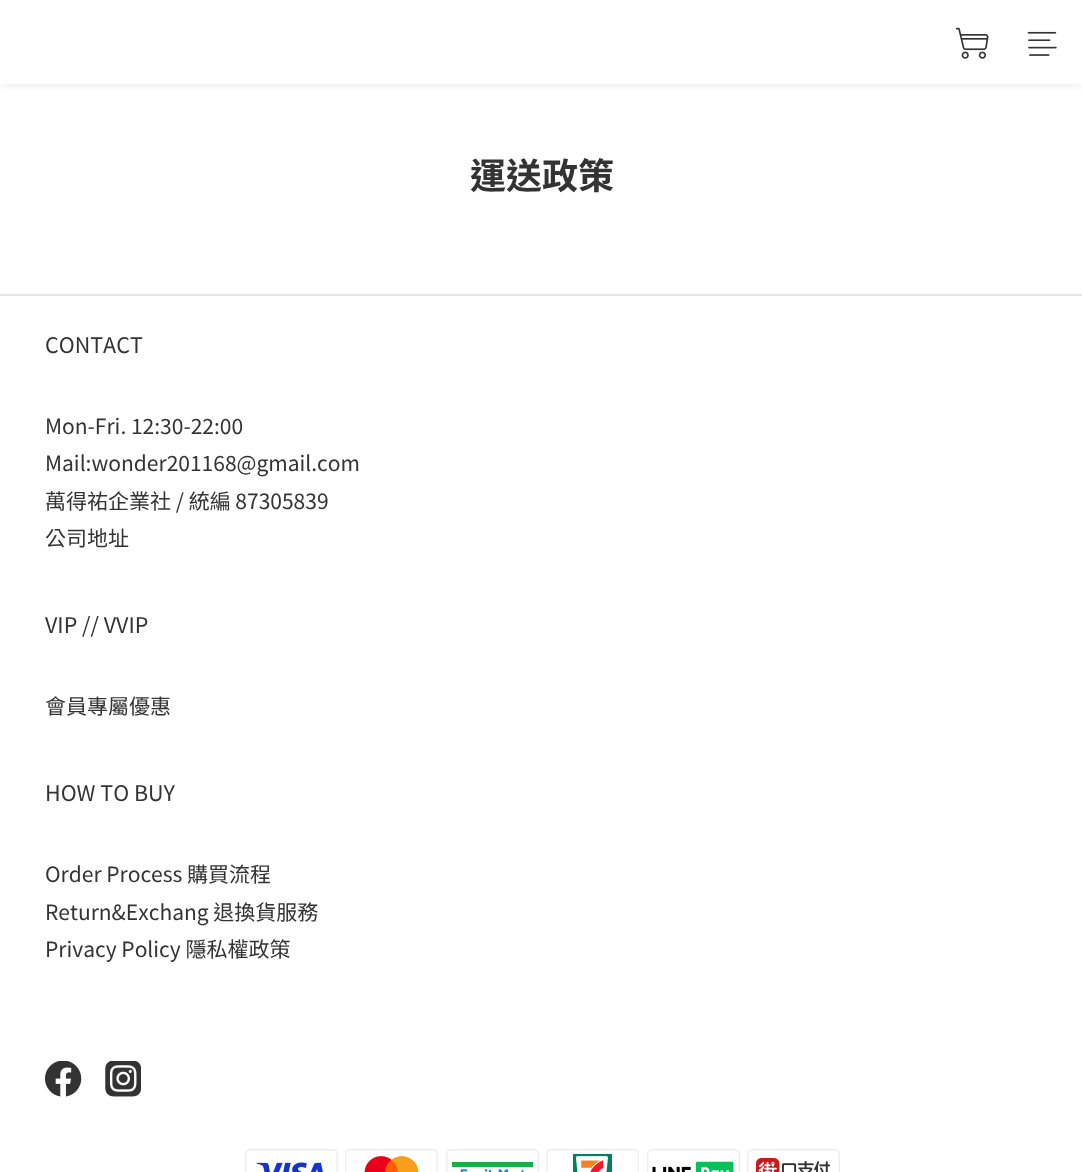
<svg xmlns="http://www.w3.org/2000/svg" width="1082" height="1172" viewBox="0 0 1082 1172">
  <style>*{font-kerning:none!important;font-variant-ligatures:none!important}</style>
  <defs>
    <clipPath id="clip1"><path d="M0 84h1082v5H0z"/></clipPath>
  </defs>
  <rect width="100%" height="100%" fill="#fff"/>
  <g clip-path="url(#clip1)">
    <path d="M0 3h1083v84H0z" fill="#0000000f" filter="blur(4.5px)"/>
  </g>
  <image x="956" y="27" width="33" height="32" href="img/1.png"/>
  <image x="1027" y="31" width="30" height="25" href="img/2.png"/>
  <path d="M0 294h1082v2H0z" fill="#e6e6e6"/>
  <image x="45" y="1061" width="37" height="36" href="img/3.png"/>
  <image x="105" y="1061" width="36" height="36" href="img/4.png"/>
  <image x="245" y="1149" width="93" height="23" href="img/5.png"/>
  <image x="345" y="1149" width="93" height="23" href="img/6.png"/>
  <image x="446" y="1149" width="93" height="23" href="img/7.png"/>
  <image x="546" y="1149" width="93" height="23" href="img/8.png"/>
  <image x="647" y="1149" width="93" height="23" href="img/9.png"/>
  <image x="747" y="1149" width="93" height="23" href="img/10.png"/>
  <text x="470" y="189" font-family="Noto Sans TC" font-size="36" font-weight="bold" fill="#333">運送政策</text>
  <text x="45" y="353" font-family="Noto Sans TC" font-size="21.5" fill="#333">CONTACT</text>
  <g font-family="Noto Sans TC" font-size="21" fill="#333">
    <text x="45" y="434">Mon-Fri. 12:30-22:00</text>
    <text x="45" y="471">Mail:wonder201168@gmail.com</text>
    <text x="45" y="509">萬得祐企業社 / 統編 87305839</text>
    <text x="45" y="546">公司地址</text>
  </g>
  <text x="45" y="633" font-family="Noto Sans TC" font-size="21.5" fill="#333">VIP // VVIP</text>
  <text x="45" y="714" font-family="Noto Sans TC" font-size="21" fill="#333">會員專屬優惠</text>
  <text x="45" y="801" font-family="Noto Sans TC" font-size="21.5" fill="#333">HOW TO BUY</text>
  <g font-family="Noto Sans TC" font-size="21" fill="#333">
    <text x="45" y="882">Order Process 購買流程</text>
    <text x="45" y="920">Return&amp;Exchang 退換貨服務</text>
    <text x="45" y="957">Privacy Policy 隱私權政策</text>
  </g>
</svg>
